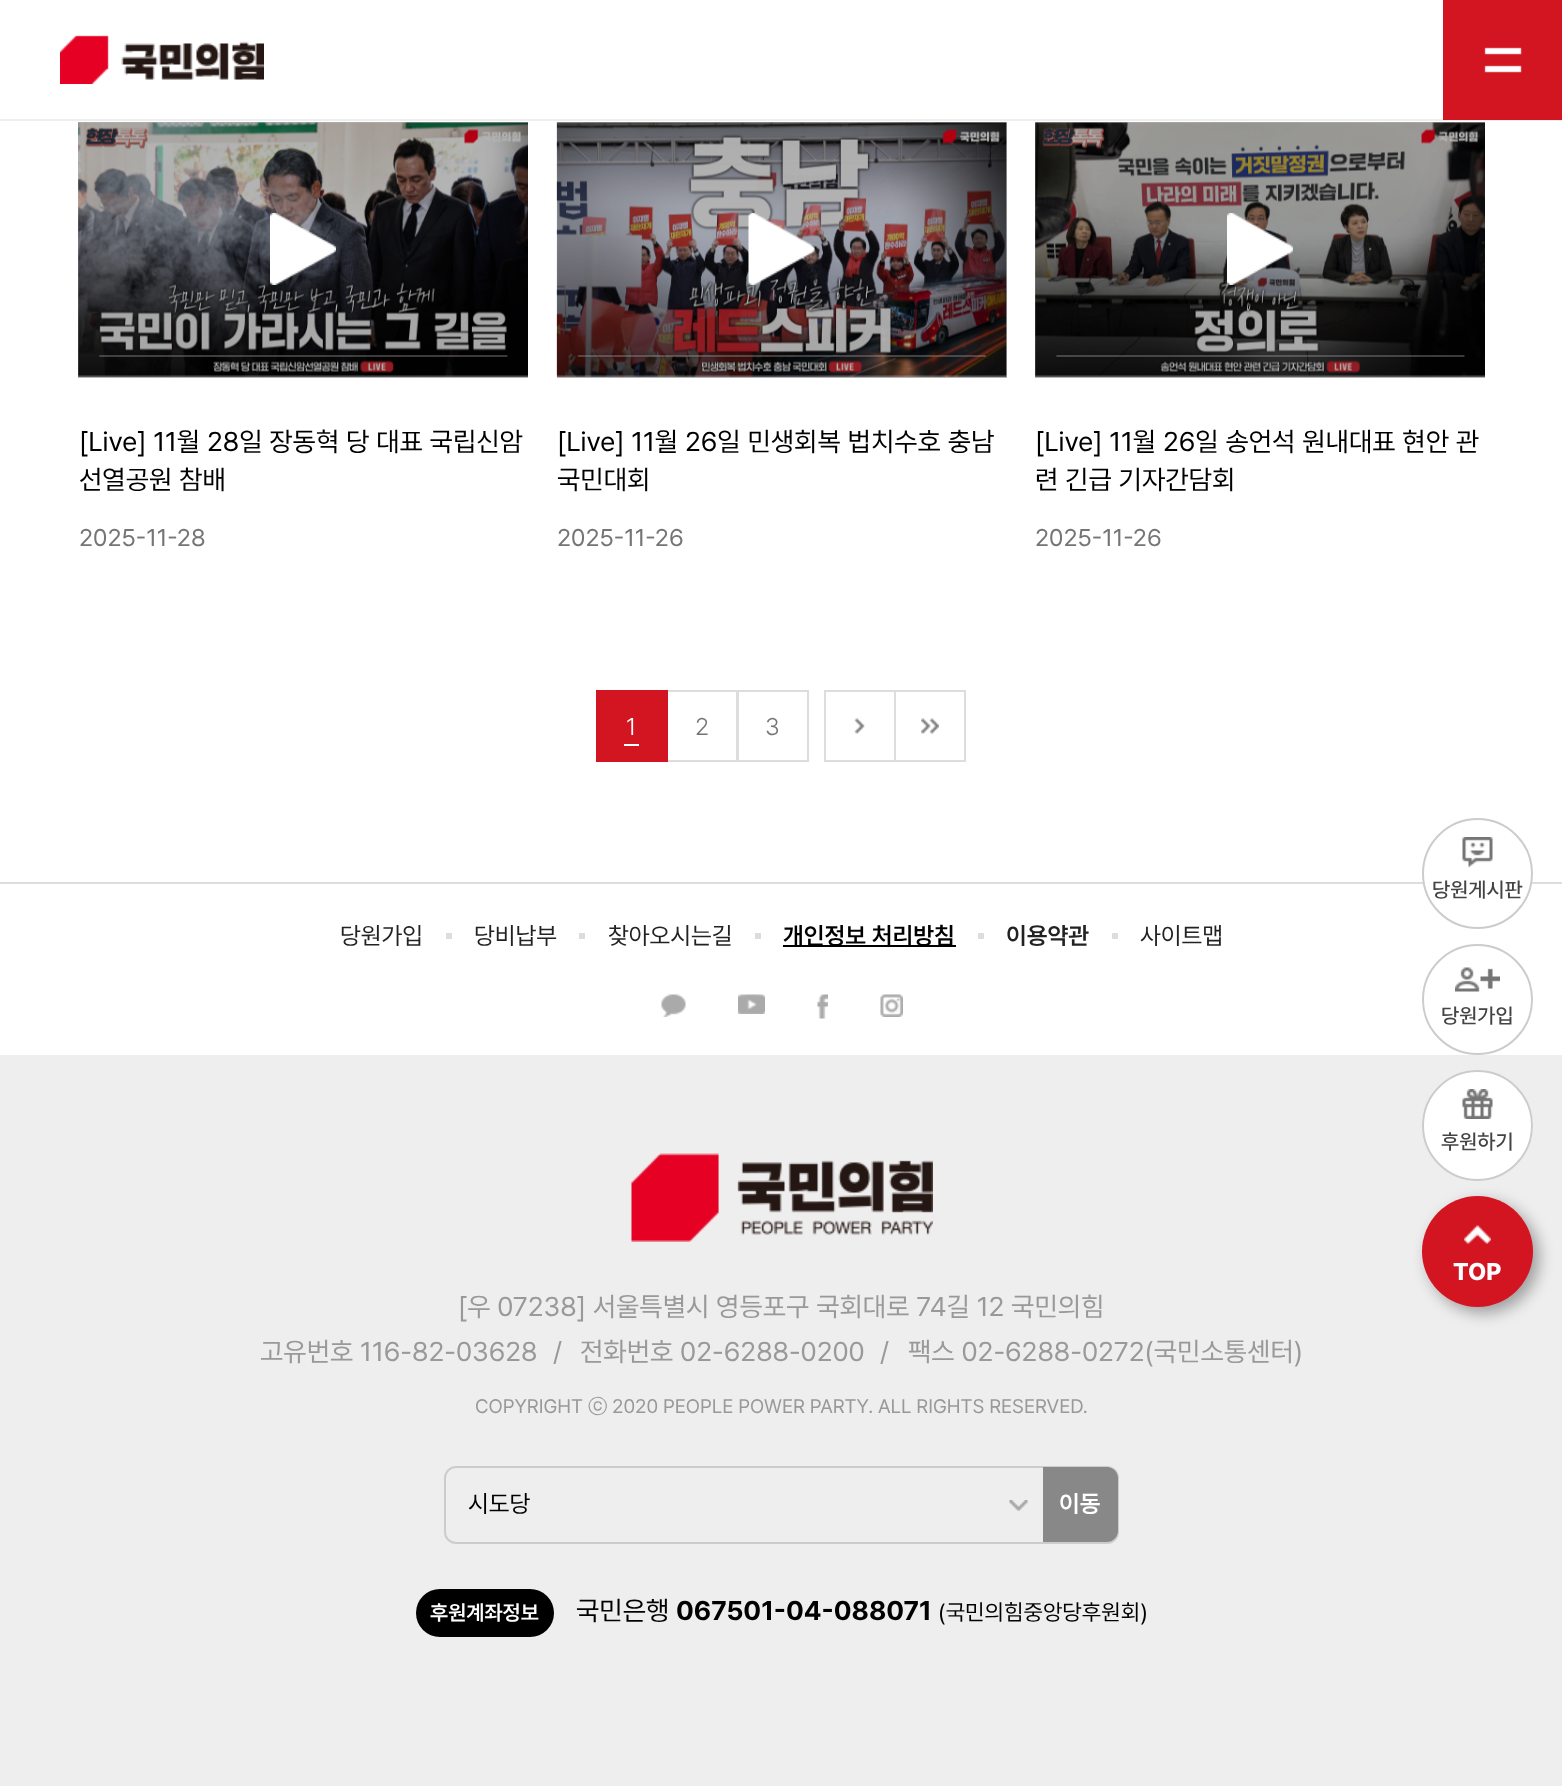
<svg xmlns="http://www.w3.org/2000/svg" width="1562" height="1786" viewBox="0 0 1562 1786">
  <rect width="100%" height="100%" fill="#fff"/>
  <path d="M1035 122h450v256H1035z" fill="#b3b3b3"/>
  <path d="M557 122h450v256H557z" fill="#b3b3b3"/>
  <path d="M78 122h450v256H78z" fill="#b3b3b3"/>
  <path d="M0 119h1562v2H0z" fill="#eee"/>
  <image x="60" y="35" width="204" height="49" href="img/1.png"/>
  <image x="1443" y="0" width="119" height="120" href="img/2.png"/>
  <image x="78" y="122" width="450" height="255" href="img/3.png"/>
  <image x="270" y="213" width="66" height="72" href="img/4.png"/>
  <image x="556" y="122" width="451" height="255" href="img/5.png"/>
  <image x="748" y="213" width="67" height="72" href="img/6.png"/>
  <image x="1035" y="122" width="450" height="255" href="img/7.png"/>
  <image x="1227" y="213" width="66" height="72" href="img/8.png"/>
  <path d="M667 691h70v70H667z" fill="none" stroke="#ddd" stroke-width="2"/>
  <path d="M596 690h72v72H596z" fill="#d31421"/>
  <path d="M624 744h15v2H624z" fill="#fff"/>
  <path d="M738 691h70v70H738z" fill="none" stroke="#ddd" stroke-width="2"/>
  <image x="854" y="718" width="11" height="16" href="img/9.png"/>
  <path d="M825 691h70v70H825z" fill="none" stroke="#ddd" stroke-width="2"/>
  <image x="921" y="718" width="18" height="16" href="img/10.png"/>
  <path d="M895 691h70v70H895z" fill="none" stroke="#ddd" stroke-width="2"/>
  <path d="M0 882h1562v2H0z" fill="#ddd"/>
  <path d="M446 933h6v6H446z" fill="#ddd"/>
  <path d="M579 933h6v6H579z" fill="#ddd"/>
  <path d="M755 933h6v6H755z" fill="#ddd"/>
  <path d="M783 945h173v2H783z" fill="#000"/>
  <path d="M978 933h6v6H978z" fill="#ddd"/>
  <path d="M1112 933h6v6H1112z" fill="#ddd"/>
  <image x="661" y="994" width="25" height="23" href="img/11.png"/>
  <image x="738" y="994" width="27" height="20" href="img/12.png"/>
  <image x="817" y="994" width="11" height="25" href="img/13.png"/>
  <image x="880" y="994" width="23" height="23" href="img/14.png"/>
  <path d="M0 1055h1562v731H0z" fill="#eee"/>
  <image x="631" y="1153" width="302" height="89" href="img/15.png"/>
  <rect x="445" y="1467" width="673" height="76" rx="11" fill="none" stroke="#ccc" stroke-width="2"/>
  <image x="1009" y="1500" width="19" height="11" href="img/16.png"/>
  <path d="M1043 1467H1107C1113 1467 1118 1472 1118 1478V1531C1118 1537 1113 1542 1107 1542H1043Z" fill="#888"/>
  <rect x="416" y="1589" width="138" height="48" rx="24" fill="#000"/>
  <circle cx="1477.5" cy="873.5" r="55.5" fill="#fff"/>
  <image x="1462" y="837" width="31" height="30" href="img/17.png"/>
  <circle cx="1477.5" cy="873.5" r="54.5" fill="none" stroke="#ccc" stroke-width="2"/>
  <image x="1455" y="967" width="45" height="25" href="img/18.png"/>
  <circle cx="1477.5" cy="999.5" r="54.5" fill="none" stroke="#ccc" stroke-width="2"/>
  <circle cx="1477.5" cy="1125.5" r="55.5" fill="#fff"/>
  <image x="1462" y="1089" width="31" height="30" href="img/19.png"/>
  <circle cx="1477.5" cy="1125.5" r="54.5" fill="none" stroke="#ccc" stroke-width="2"/>
  <rect x="1428" y="1202" width="111" height="111" rx="55.5" fill="#00000057" filter="blur(7.5px)"/>
  <circle cx="1477.5" cy="1251.5" r="55.5" fill="#d31421"/>
  <image x="1464" y="1225" width="27" height="19" href="img/20.png"/>
  <g font-family="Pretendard" font-size="27" fill="#000">
    <text x="79" y="451">[Live] 11월 28일 장동혁 당 대표 국립신암</text>
    <text x="79" y="489">선열공원 참배</text>
  </g>
  <text x="79" y="546" font-family="Pretendard" font-size="24" fill="#757575">2025-11-28</text>
  <g font-family="Pretendard" font-size="27" fill="#000">
    <text x="557" y="451">[Live] 11월 26일 민생회복 법치수호 충남</text>
    <text x="557" y="489">국민대회</text>
  </g>
  <text x="557" y="546" font-family="Pretendard" font-size="24" fill="#757575">2025-11-26</text>
  <g font-family="Pretendard" font-size="27" fill="#000">
    <text x="1035" y="451">[Live] 11월 26일 송언석 원내대표 현안 관</text>
    <text x="1035" y="489">련 긴급 기자간담회</text>
  </g>
  <text x="1035" y="546" font-family="Pretendard" font-size="24" fill="#757575">2025-11-26</text>
  <text x="626" y="735" font-family="Pretendard" font-size="24" font-weight="300" fill="#fff">1</text>
  <g font-family="Pretendard" font-size="24" font-weight="300" fill="#757575">
    <text x="695" y="735">2</text>
    <text x="765" y="735">3</text>
  </g>
  <g font-family="Pretendard" font-size="24" fill="#222">
    <text x="340" y="944">당원가입</text>
    <text x="474" y="944">당비납부</text>
    <text x="608" y="944">찾아오시는길</text>
  </g>
  <text x="783" y="944" font-family="Pretendard" font-size="24" font-weight="600" fill="#000">개인정보 처리방침</text>
  <text x="1006" y="944" font-family="Pretendard" font-size="24" font-weight="600" fill="#222">이용약관</text>
  <text x="1140" y="944" font-family="Pretendard" font-size="24" fill="#222">사이트맵</text>
  <g font-family="Pretendard" font-size="27" fill="#999">
    <text x="458" y="1316">[우 07238] 서울특별시 영등포구 국회대로 74길 12 국민의힘</text>
    <text x="260" y="1361">고유번호 116-82-03628</text>
    <text x="553" y="1361">/</text>
    <text x="580" y="1361">전화번호 02-6288-0200</text>
    <text x="880" y="1361">/</text>
    <text x="908" y="1361">팩스 02-6288-0272(국민소통센터)</text>
  </g>
  <text x="475" y="1413" font-family="Pretendard" font-size="19.5" fill="#999">COPYRIGHT</text>
  <text x="588" y="1413" font-family="WenQuanYi Zen Hei" font-size="19.5" font-weight="500" fill="#999">ⓒ</text>
  <text x="612" y="1413" font-family="Pretendard" font-size="19.5" fill="#999">2020 PEOPLE POWER PARTY. ALL RIGHTS RESERVED.</text>
  <text x="468" y="1512" font-family="Pretendard" font-size="24" fill="#000">시도당</text>
  <text x="1059" y="1512" font-family="Pretendard" font-size="24" font-weight="600" fill="#fff">이동</text>
  <text x="430" y="1620" font-family="Pretendard" font-size="21" font-weight="600" fill="#fff">후원계좌정보</text>
  <text x="576" y="1620" font-family="Pretendard" font-size="27" fill="#000">국민은행</text>
  <text x="676" y="1620" font-family="Pretendard" font-size="27" font-weight="bold" fill="#000">067501-04-088071</text>
  <text x="938" y="1620" font-family="Pretendard" font-size="22.5" fill="#000">(국민의힘중앙당후원회)</text>
  <g font-family="Pretendard" font-size="21" font-weight="500" fill="#444">
    <text x="1432" y="897">당원게시판</text>
    <text x="1441" y="1023">당원가입</text>
    <text x="1441" y="1149">후원하기</text>
  </g>
  <text x="1453" y="1280" font-family="Pretendard" font-size="24" font-weight="800" fill="#fff">TOP</text>
</svg>
